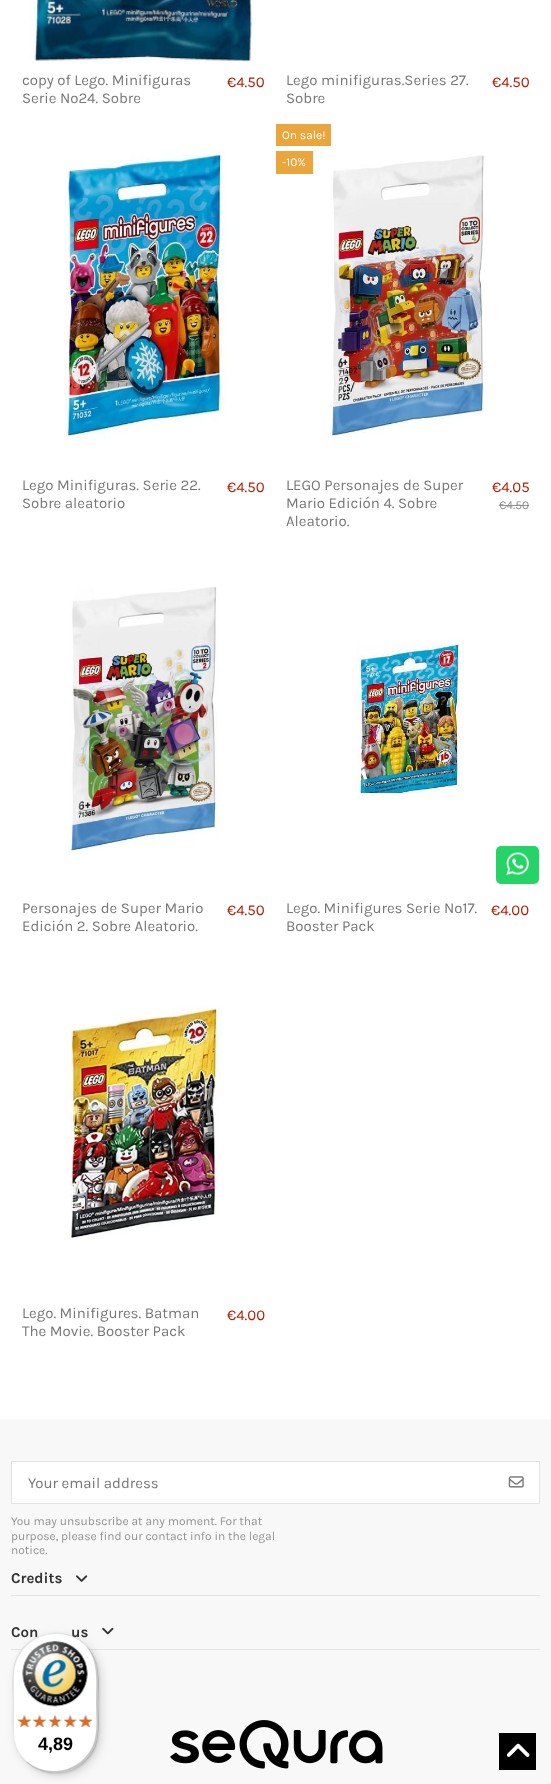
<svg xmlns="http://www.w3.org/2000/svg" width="551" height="1784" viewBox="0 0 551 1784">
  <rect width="100%" height="100%" fill="#fff"/>
  <image x="29" y="0" width="225" height="62" href="img/1.png"/>
  <image x="65" y="151" width="162" height="288" href="img/2.png"/>
  <path d="M276 124h55v22H276z" fill="#eba53d"/>
  <path d="M276 151h37v23H276z" fill="#eba53d"/>
  <image x="330" y="155" width="156" height="283" href="img/3.png"/>
  <path d="M499 505h30v1H499z" fill="#929292"/>
  <image x="65" y="586" width="153" height="266" href="img/4.png"/>
  <image x="356" y="637" width="108" height="161" href="img/5.png"/>
  <image x="65" y="1006" width="157" height="234" href="img/6.png"/>
  <path d="M0 1419h551v365H0z" fill="#f8f8f8"/>
  <path d="M11.5 1461.5h528v42H11.5z" fill="#fff" stroke="#e3e3e3"/>
  <image x="508" y="1476" width="16" height="12" href="img/7.png"/>
  <path d="M11 1595h529v1H11z" fill="#e3e3e3"/>
  <image x="76" y="1575" width="12" height="7" href="img/8.png"/>
  <path d="M11 1649h529v1H11z" fill="#e3e3e3"/>
  <image x="102" y="1627" width="12" height="8" href="img/9.png"/>
  <image x="170" y="1720" width="213" height="49" href="img/10.png"/>
  <rect x="496" y="846" width="43" height="38" rx="5" fill="#25d366"/>
  <image x="506" y="852" width="23" height="23" href="img/11.png"/>
  <rect x="16" y="1636" width="85" height="140" rx="42.5" fill="#00000026" filter="blur(5px)"/>
  <rect x="14" y="1634" width="85" height="140" rx="42.5" fill="#00000026" filter="blur(1px)"/>
  <path d="M499 1733h37v37H499z" fill="#000"/>
  <image x="506" y="1743" width="24" height="14" href="img/23.png"/>
  <path d="M549 1783h2v1H549z" fill="#f5f5f5"/>
  <g font-family="Karla" font-size="15" fill="#777">
    <text x="22" y="85">copy of Lego. Minifiguras</text>
    <text x="22" y="103">Serie Nº24. Sobre</text>
  </g>
  <text x="227" y="87" font-family="Karla" font-size="15" fill="#ad1f00">€4.50</text>
  <g font-family="Karla" font-size="15" fill="#777">
    <text x="286" y="85">Lego minifiguras.Series 27.</text>
    <text x="286" y="103">Sobre</text>
  </g>
  <text x="492" y="87" font-family="Karla" font-size="15" fill="#ad1f00">€4.50</text>
  <g font-family="Karla" font-size="15" fill="#777">
    <text x="22" y="490">Lego Minifiguras. Serie 22.</text>
    <text x="22" y="508">Sobre aleatorio</text>
  </g>
  <text x="227" y="492" font-family="Karla" font-size="15" fill="#ad1f00">€4.50</text>
  <g font-family="Karla" font-size="12" fill="#fff">
    <text x="282" y="139">On sale!</text>
    <text x="282" y="166">-10%</text>
  </g>
  <g font-family="Karla" font-size="15" fill="#777">
    <text x="286" y="490">LEGO Personajes de Super</text>
    <text x="286" y="508">Mario Edición 4. Sobre</text>
    <text x="286" y="526">Aleatorio.</text>
  </g>
  <text x="492" y="492" font-family="Karla" font-size="15" fill="#ad1f00">€4.05</text>
  <text x="499" y="509" font-family="Karla" font-size="12" fill="#929292">€4.50</text>
  <g font-family="Karla" font-size="15" fill="#777">
    <text x="22" y="913">Personajes de Super Mario</text>
    <text x="22" y="931">Edición 2. Sobre Aleatorio.</text>
  </g>
  <text x="227" y="915" font-family="Karla" font-size="15" fill="#ad1f00">€4.50</text>
  <g font-family="Karla" font-size="15" fill="#777">
    <text x="286" y="913">Lego. Minifigures Serie Nº17.</text>
    <text x="286" y="931">Booster Pack</text>
  </g>
  <text x="491" y="915" font-family="Karla" font-size="15" fill="#ad1f00">€4.00</text>
  <g font-family="Karla" font-size="15" fill="#777">
    <text x="22" y="1318">Lego. Minifigures. Batman</text>
    <text x="22" y="1336">The Movie. Booster Pack</text>
  </g>
  <text x="227" y="1320" font-family="Karla" font-size="15" fill="#ad1f00">€4.00</text>
  <text x="28" y="1488" font-family="Karla" font-size="15" fill="#777">Your email address</text>
  <g font-family="Karla" font-size="12" fill="#929292">
    <text x="11" y="1525">You may unsubscribe at any moment. For that</text>
    <text x="11" y="1540">purpose, please find our contact info in the legal</text>
    <text x="11" y="1554">notice.</text>
  </g>
  <g font-family="Karla" font-size="15" font-weight="bold" fill="#333">
    <text x="11" y="1583">Credits</text>
    <text x="11" y="1637">Con</text>
    <text x="71" y="1637">us</text>
  </g>
  <rect x="13" y="1633" width="85" height="140" rx="42.5" fill="#fff"/>
  <path d="M56 1634C68 1634 78 1638 86 1646C65 1624 28 1631 16 1659C11 1671 13 1689 13 1703C13 1724 10 1745 26 1761C18 1753 14 1743 14 1731V1676C14 1653 33 1634 56 1634Z" fill="#0000001a"/>
  <path d="M25 1760C45 1782 83 1775 95 1747C100 1735 98 1717 98 1703C98 1682 102 1660 85 1645C99 1660 96 1682 96 1702C96 1715 98 1733 93 1745C81 1773 46 1779 25 1760Z" fill="#00000033"/>
  <path d="M25 1761C46 1781 83 1775 95 1747C100 1735 98 1717 98 1703C98 1682 101 1661 86 1645C93 1653 97 1663 97 1674V1729C97 1753 78 1772 54 1772C43 1772 33 1768 25 1761Z" fill="#32323233"/>
  <path d="M25 1761C46 1781 83 1775 95 1747C100 1735 98 1717 98 1703C98 1682 101 1661 86 1645C93 1653 97 1663 97 1674V1729C97 1753 78 1772 54 1772C43 1772 33 1768 25 1761Z" fill="#ffffff4d"/>
  <image x="22" y="1641" width="66" height="66" href="img/12.png"/>
  <image x="17" y="1715" width="14" height="13" href="img/13.png"/>
  <image x="34" y="1715" width="12" height="12" href="img/14.png"/>
  <image x="49" y="1715" width="12" height="13" href="img/15.png"/>
  <image x="64" y="1715" width="14" height="12" href="img/16.png"/>
  <image x="79" y="1715" width="14" height="13" href="img/17.png"/>
  <image x="17" y="1715" width="15" height="12" href="img/18.png"/>
  <image x="32" y="1715" width="15" height="12" href="img/19.png"/>
  <image x="48" y="1715" width="14" height="12" href="img/20.png"/>
  <image x="63" y="1715" width="14" height="12" href="img/21.png"/>
  <image x="78" y="1715" width="14" height="12" href="img/22.png"/>
  <text x="38" y="1750" font-family="Liberation Sans" font-size="18" font-weight="bold" fill="#000">4,89</text>
</svg>
